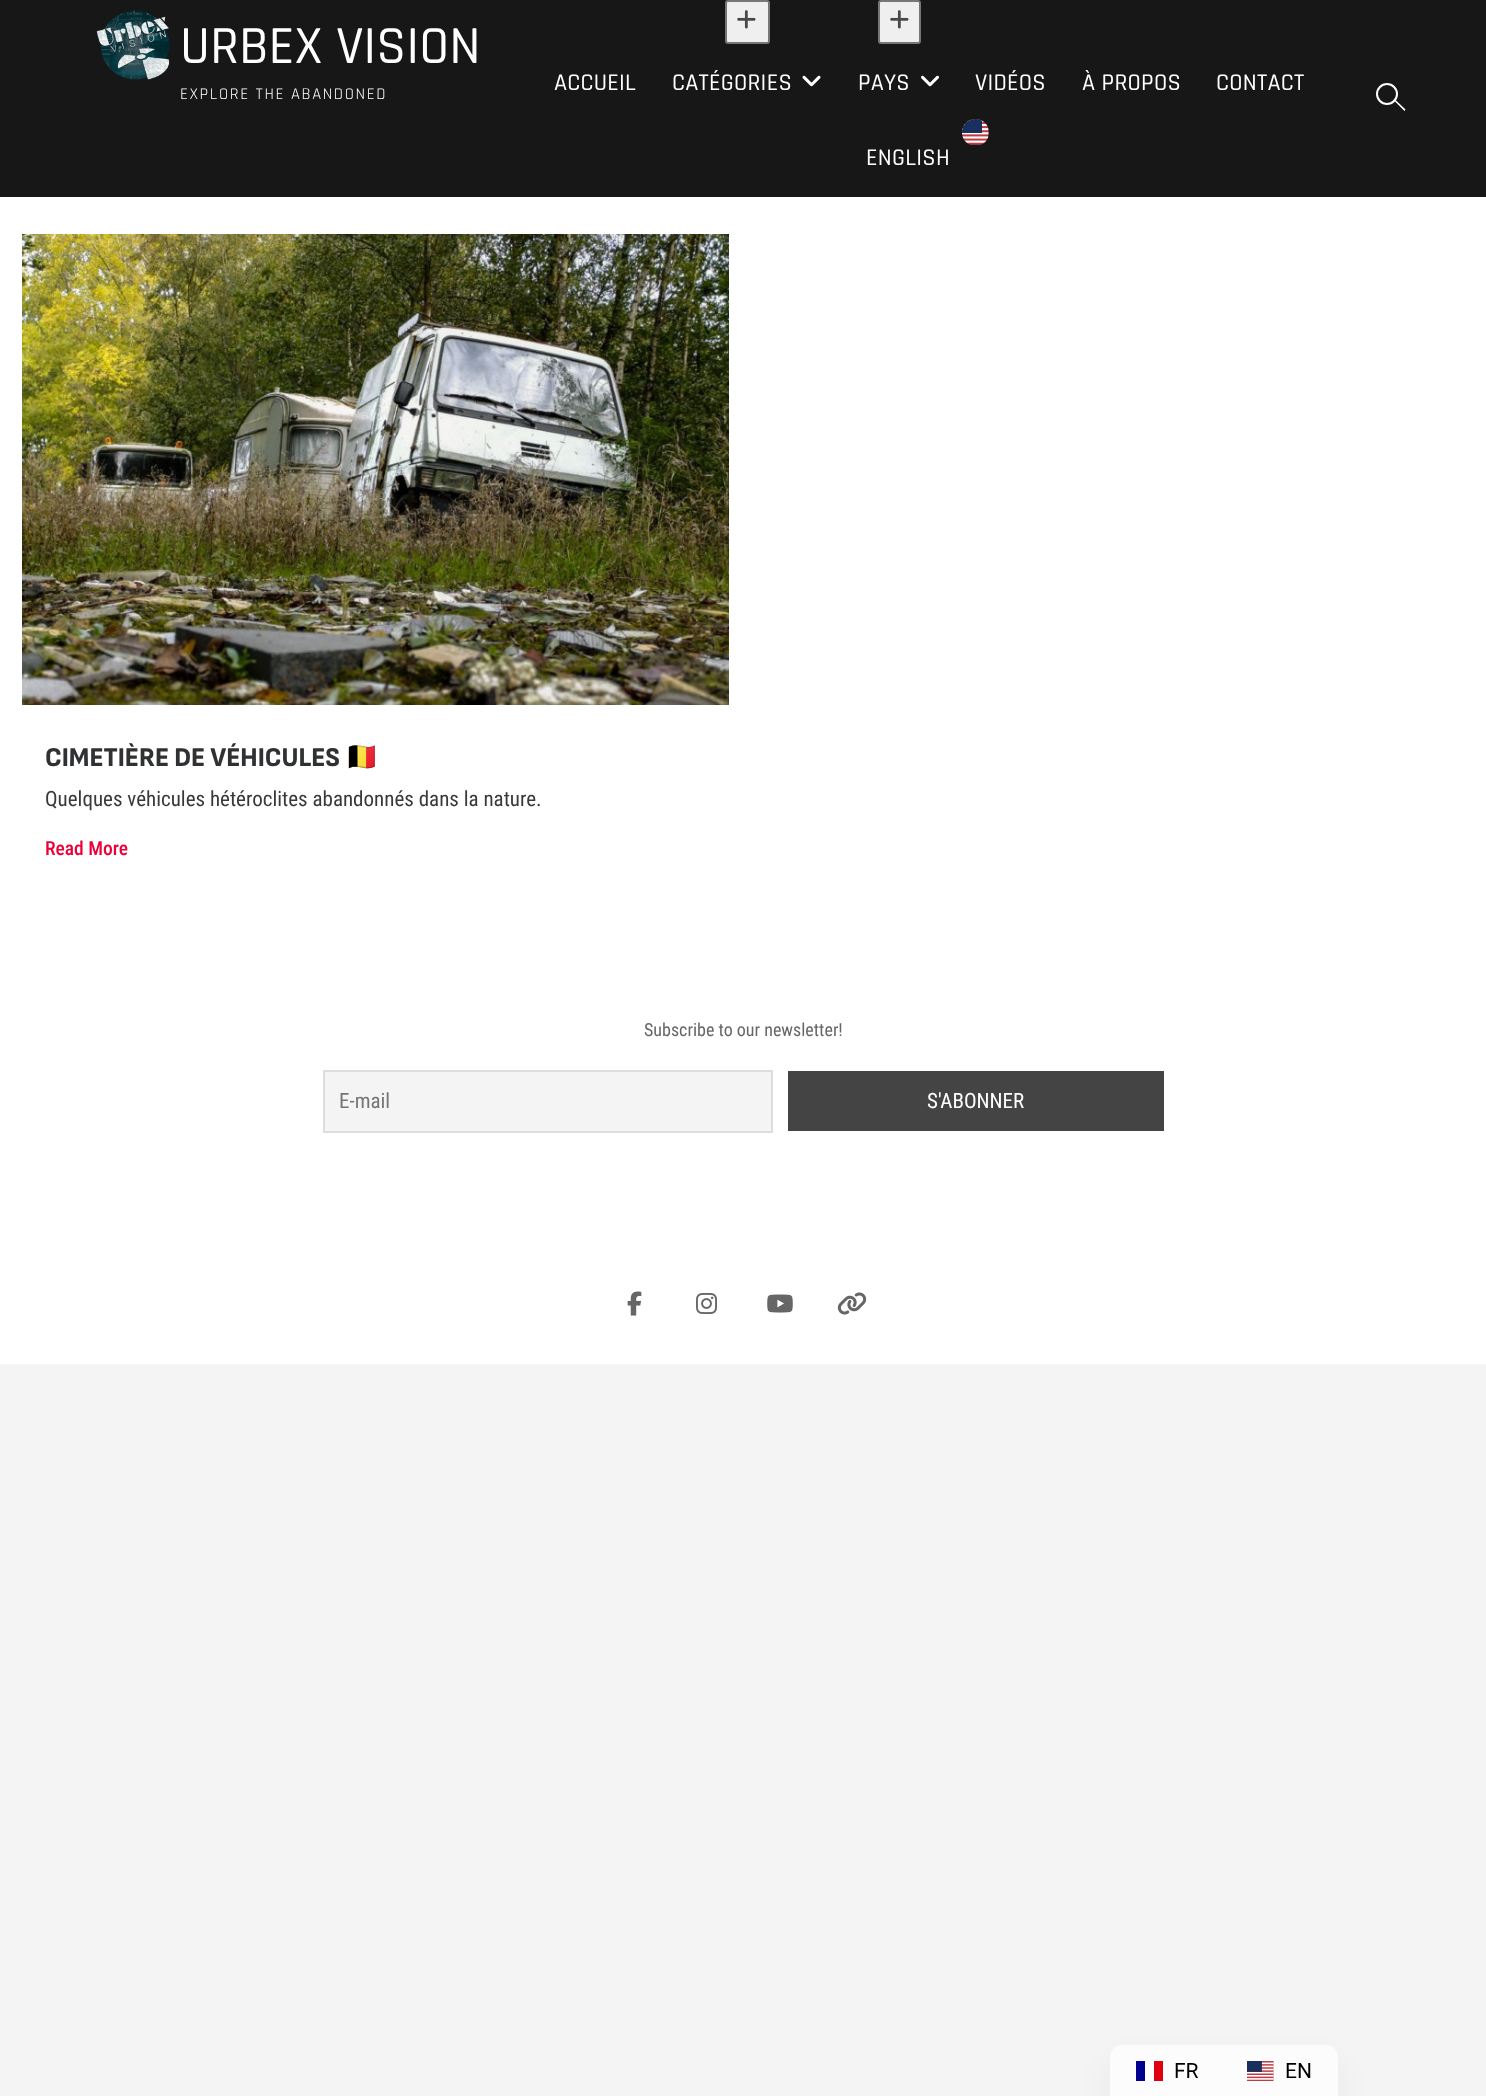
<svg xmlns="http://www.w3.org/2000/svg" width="1486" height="2096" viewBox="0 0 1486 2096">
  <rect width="100%" height="100%" fill="#f4f4f4"/>
  <path d="M0 197h1486v1167H0z" fill="#fff"/>
  <path d="M0 0h1486v197H0z" fill="#171717"/>
  <image x="96" y="10" width="74" height="70" href="img/1.png"/>
  <rect x="726" y="1" width="43" height="42" rx="2" fill="#efefef" stroke="#767676" stroke-width="2"/>
  <image x="737" y="10" width="19" height="19" href="img/2.png"/>
  <image x="802" y="75" width="19" height="12" href="img/3.png"/>
  <rect x="879" y="1" width="41" height="42" rx="2" fill="#efefef" stroke="#767676" stroke-width="2"/>
  <image x="890" y="10" width="19" height="19" href="img/2.png"/>
  <image x="921" y="75" width="18" height="12" href="img/4.png"/>
  <image x="962" y="119" width="27" height="26" href="img/5.png"/>
  <circle cx="1387" cy="94" r="10" fill="none" stroke="#fff" stroke-width="2"/>
  <path d="M1393.5 100L1394.5 99L1405.5 109.5L1404.5 111Z" fill="#fff"/>
  <image x="22" y="234" width="707" height="471" href="img/6.png"/>
  <path d="M324 1071h448v61H324z" fill="#f4f4f4" stroke="#ddd" stroke-width="2"/>
  <path d="M788 1071h376v60H788z" fill="#444"/>
  <image x="627" y="1291" width="15" height="25" href="img/7.png"/>
  <image x="696" y="1293" width="21" height="21" href="img/8.png"/>
  <image x="767" y="1294" width="26" height="19" href="img/9.png"/>
  <image x="837" y="1292" width="30" height="23" href="img/10.png"/>
  <rect x="1110" y="2060" width="228" height="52" rx="12" fill="#0000000d" filter="blur(15px)"/>
  <path d="M1122 2045H1326C1332.5 2045 1338 2050.5 1338 2057V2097H1110V2057C1110 2050.5 1115.5 2045 1122 2045Z" fill="#fcfcfc"/>
  <path d="M1145 2061h9v20H1145z" fill="#fff"/>
  <path d="M1136 2061h9v20H1136z" fill="#000091"/>
  <path d="M1154 2061h9v20H1154z" fill="#e1000f"/>
  <image x="1247" y="2061" width="27" height="20" href="img/11.png"/>
  <text x="180" y="63" font-family="Rajdhani" font-size="54" font-weight="500" fill="#fff">URBEX VISION</text>
  <text x="180" y="99" font-family="Rajdhani" font-size="16.5" letter-spacing="1.65" fill="#fff">EXPLORE THE ABANDONED</text>
  <g font-family="Rajdhani" font-size="24" font-weight="500" letter-spacing="0.25" fill="#fff">
    <text x="554" y="90">ACCUEIL</text>
    <text x="672" y="90">CATÉGORIES</text>
    <text x="858" y="90">PAYS</text>
    <text x="975" y="90">VIDÉOS</text>
    <text x="1082" y="90">À PROPOS</text>
    <text x="1216" y="90">CONTACT</text>
    <text x="866" y="165">ENGLISH</text>
  </g>
  <text x="45" y="766" font-family="Sofia Sans Semi Condensed" font-size="27" font-weight="800" fill="#303133">CIMETIÈRE DE VÉHICULES</text>
  <text x="345" y="766" font-family="Noto Color Emoji" font-size="27" font-weight="bold" fill="#303133">🇧🇪</text>
  <text x="45" y="806" font-family="Roboto Condensed" font-size="21" fill="#393939">Quelques véhicules hétéroclites abandonnés dans la nature.</text>
  <text x="45" y="855" font-family="Roboto Condensed" font-size="19.5" font-weight="500" fill="#ec003a">Read More</text>
  <text x="644" y="1036" font-family="Roboto Condensed" font-size="18" fill="#666">Subscribe to our newsletter!</text>
  <text x="339" y="1108" font-family="Roboto Condensed" font-size="21" fill="#757575">E-mail</text>
  <text x="927" y="1108" font-family="Roboto Condensed" font-size="21" fill="#fff">S'ABONNER</text>
  <g font-family="Roboto" font-size="21" fill="#000">
    <text x="1174" y="2078">FR</text>
    <text x="1285" y="2078">EN</text>
  </g>
</svg>
